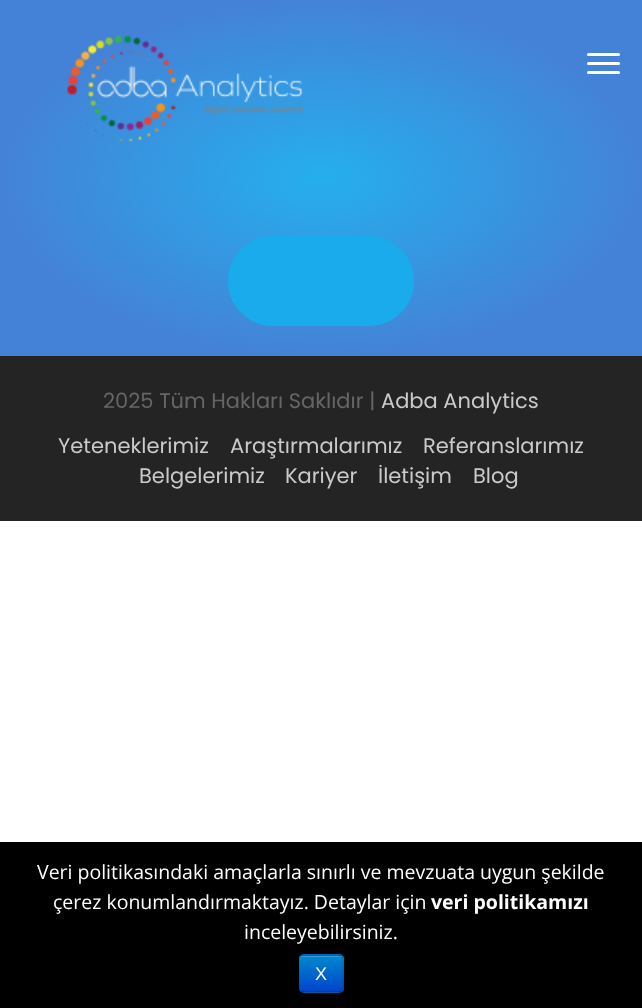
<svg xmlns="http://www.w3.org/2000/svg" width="642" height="1008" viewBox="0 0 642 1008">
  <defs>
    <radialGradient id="g1" gradientUnits="userSpaceOnUse" cx="0" cy="0" r="1" gradientTransform="matrix(321 0 0 178 321 178)"><stop offset="0" stop-color="#25afed"/><stop offset="1" stop-color="#4482d7"/></radialGradient>
    <clipPath id="clip1"><rect x="299" y="954" width="45" height="39" rx="5"/></clipPath>
    <linearGradient id="g2" gradientUnits="userSpaceOnUse" x1="321" y1="956" x2="321" y2="992"><stop offset="0" stop-color="#08c"/><stop offset="1" stop-color="#04c"/></linearGradient>
  </defs>
  <rect width="100%" height="100%" fill="#fff"/>
  <path d="M0 0h642v356H0z" fill="url(#g1)"/>
  <rect x="229.5" y="237.5" width="183" height="87" rx="43.5" fill="#1aabec" stroke="#1aabec" stroke-width="3"/>
  <image x="67" y="35" width="237" height="107" href="img/1.png"/>
  <rect x="587" y="53" width="33" height="3" rx="1.5" fill="#fff"/>
  <rect x="587" y="62" width="33" height="3" rx="1.5" fill="#fff"/>
  <rect x="587" y="71" width="33" height="3" rx="1.5" fill="#fff"/>
  <path d="M0 356h642v165H0z" fill="#242424"/>
  <path d="M0 842h642v166H0z" fill="#000"/>
  <rect x="299" y="954" width="45" height="39" rx="5" fill="#006dcc"/>
  <g clip-path="url(#clip1)">
    <path d="M299 956h45v36H299z" fill="url(#g2)"/>
  </g>
  <path d="M303 957H339C341 957 342 958 342 960C342 955 337 956 333 956H309C305 956 300 955 300 960C300 958 301 957 303 957Z" fill="#339fd6"/>
  <path d="M341.5 991C341 992 340 992 339 992H303C302 992 301 992 300.5 991" fill="none" stroke="#00000040" stroke-width="1.5"/>
  <path d="M300.5 991C298.5 989.5 299 985.5 299 983.5V973.5C299 950 296 955 321 955C346 955 343 950 343 973.5V983.5C343 985.5 343.5 989.5 341.5 991" fill="none" stroke="#0000001a" stroke-width="1.5"/>
  <text x="103" y="408" font-family="Poppins" font-size="21" fill="#666">2025 Tüm Hakları Saklıdır |</text>
  <g font-family="Poppins" font-size="21" fill="#cacaca">
    <text x="381" y="408">Adba Analytics</text>
    <text x="58" y="453">Yeteneklerimiz</text>
    <text x="230" y="453">Araştırmalarımız</text>
    <text x="423" y="453">Referanslarımız</text>
    <text x="139" y="483">Belgelerimiz</text>
    <text x="285" y="483">Kariyer</text>
    <text x="378" y="483">İletişim</text>
    <text x="473" y="483">Blog</text>
  </g>
  <g font-family="Open Sans" font-size="19.5" fill="#fff">
    <text x="37" y="879">Veri politikasındaki amaçlarla sınırlı ve mevzuata uygun şekilde</text>
    <text x="53" y="909">çerez konumlandırmaktayız. Detaylar için</text>
  </g>
  <text x="431" y="909" font-family="Open Sans" font-size="19.5" font-weight="bold" fill="#fff">veri politikamızı</text>
  <text x="244" y="939" font-family="Open Sans" font-size="19.5" fill="#fff">inceleyebilirsiniz.</text>
  <text x="315" y="980" font-family="Liberation Sans" font-size="18" fill="#fff">X</text>
</svg>
